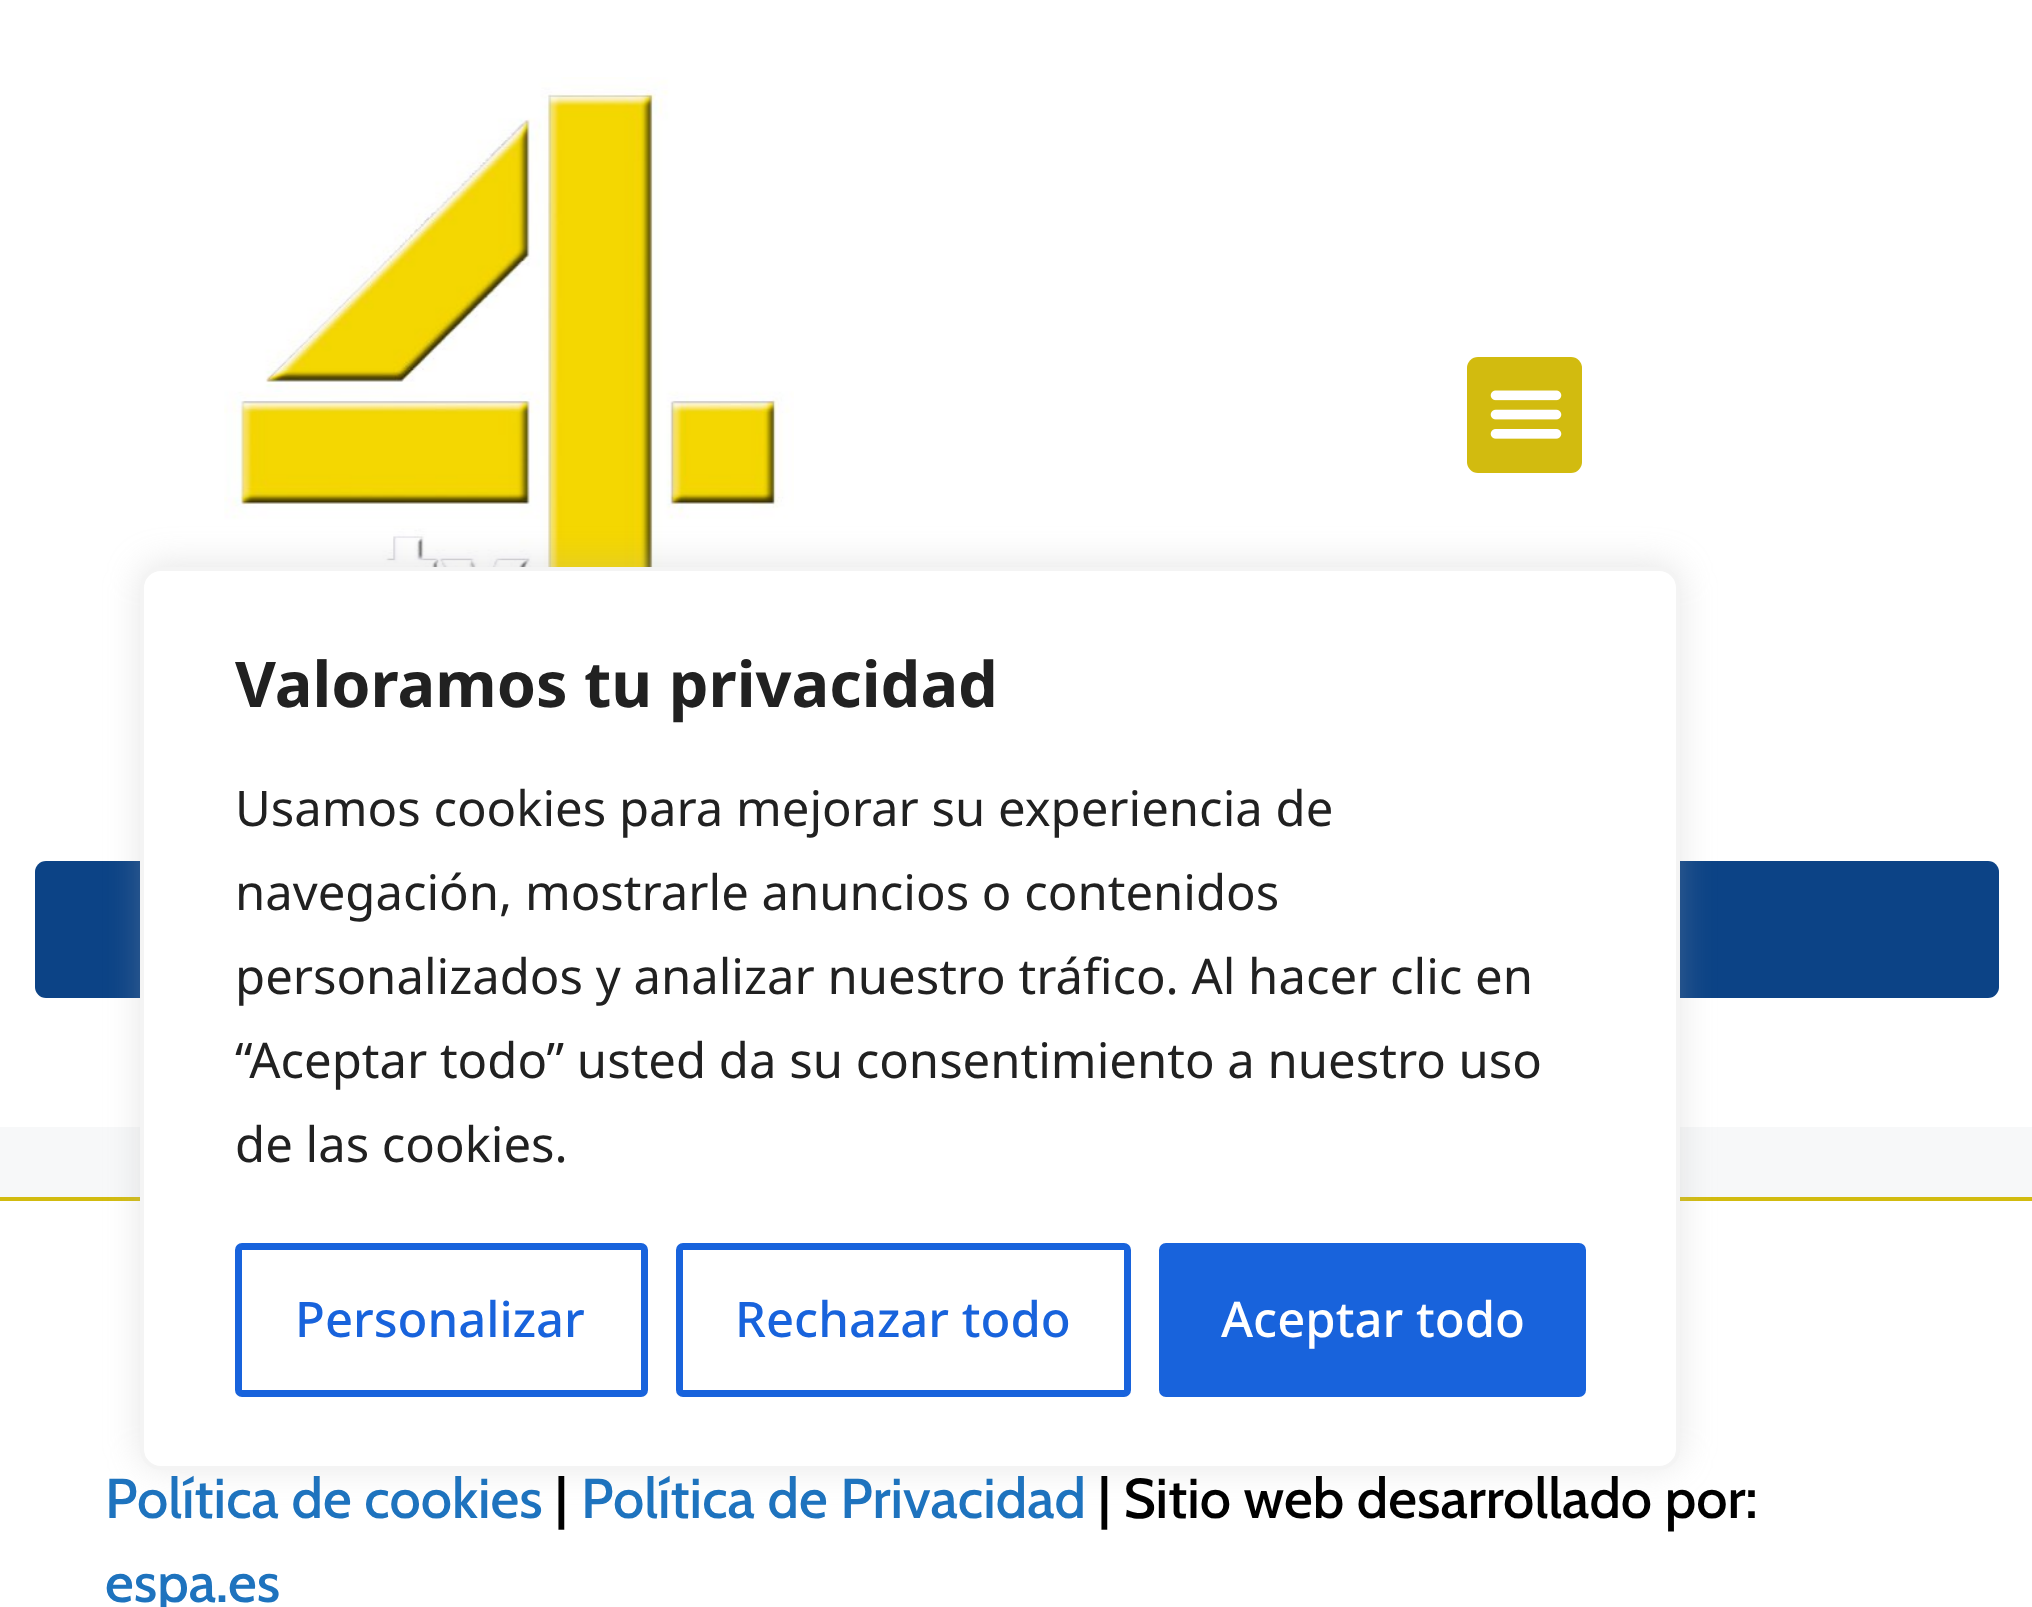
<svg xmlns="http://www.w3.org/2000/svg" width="2032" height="1607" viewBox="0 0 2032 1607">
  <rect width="100%" height="100%" fill="#f7f8f9"/>
  <path d="M0 0h2032v1127H0z" fill="#fff"/>
  <image x="224" y="77" width="570" height="490" href="img/1.png"/>
  <rect x="1467" y="357" width="115" height="116" rx="11" fill="#d2bb0f"/>
  <image x="1490" y="390" width="72" height="49" href="img/2.png"/>
  <rect x="35" y="861" width="1964" height="137" rx="11" fill="#0c4386"/>
  <path d="M0 1201h2032v406H0z" fill="#fff"/>
  <path d="M0 1197h2032v4H0z" fill="#d2bb0f"/>
  <rect x="140" y="564" width="1540" height="903" rx="21" fill="#acabab4d" filter="blur(17.5px)"/>
  <rect x="142" y="569" width="1536" height="899" rx="19" fill="#fff" stroke="#f4f4f4" stroke-width="4"/>
  <rect x="238.5" y="1246.5" width="406" height="147" rx="3.5" fill="none" stroke="#1863dc" stroke-width="7"/>
  <rect x="679.5" y="1246.5" width="448" height="147" rx="3.5" fill="none" stroke="#1863dc" stroke-width="7"/>
  <rect x="1162.5" y="1246.5" width="420" height="147" rx="3.5" fill="#1863dc" stroke="#1863dc" stroke-width="7"/>
  <text x="235" y="707" font-family="Noto Sans" font-size="63" font-weight="bold" fill="#212121">Valoramos tu privacidad</text>
  <g font-family="Noto Sans" font-size="49" fill="#212121">
    <text x="235" y="826">Usamos cookies para mejorar su experiencia de</text>
    <text x="235" y="910">navegación, mostrarle anuncios o contenidos</text>
    <text x="235" y="994">personalizados y analizar nuestro tráfico. Al hacer clic en</text>
    <text x="235" y="1078">“Aceptar todo” usted da su consentimiento a nuestro uso</text>
    <text x="235" y="1162">de las cookies.</text>
  </g>
  <g font-family="Noto Sans" font-size="49" font-weight="500" fill="#1863dc">
    <text x="295" y="1337">Personalizar</text>
    <text x="735" y="1337">Rechazar todo</text>
  </g>
  <text x="1221" y="1337" font-family="Noto Sans" font-size="49" font-weight="500" fill="#fff">Aceptar todo</text>
  <text x="105" y="1518" font-family="Cabin" font-size="56" font-weight="500" fill="#1e73be">Política de cookies</text>
  <text x="555" y="1518" font-family="Cabin" font-size="56" font-weight="500" fill="#000">|</text>
  <text x="581" y="1518" font-family="Cabin" font-size="56" font-weight="500" fill="#1e73be">Política de Privacidad</text>
  <text x="1098" y="1518" font-family="Cabin" font-size="56" font-weight="500" fill="#000">| Sitio web desarrollado por:</text>
  <text x="105" y="1602" font-family="Cabin" font-size="56" font-weight="500" fill="#1e73be">espa.es</text>
</svg>
